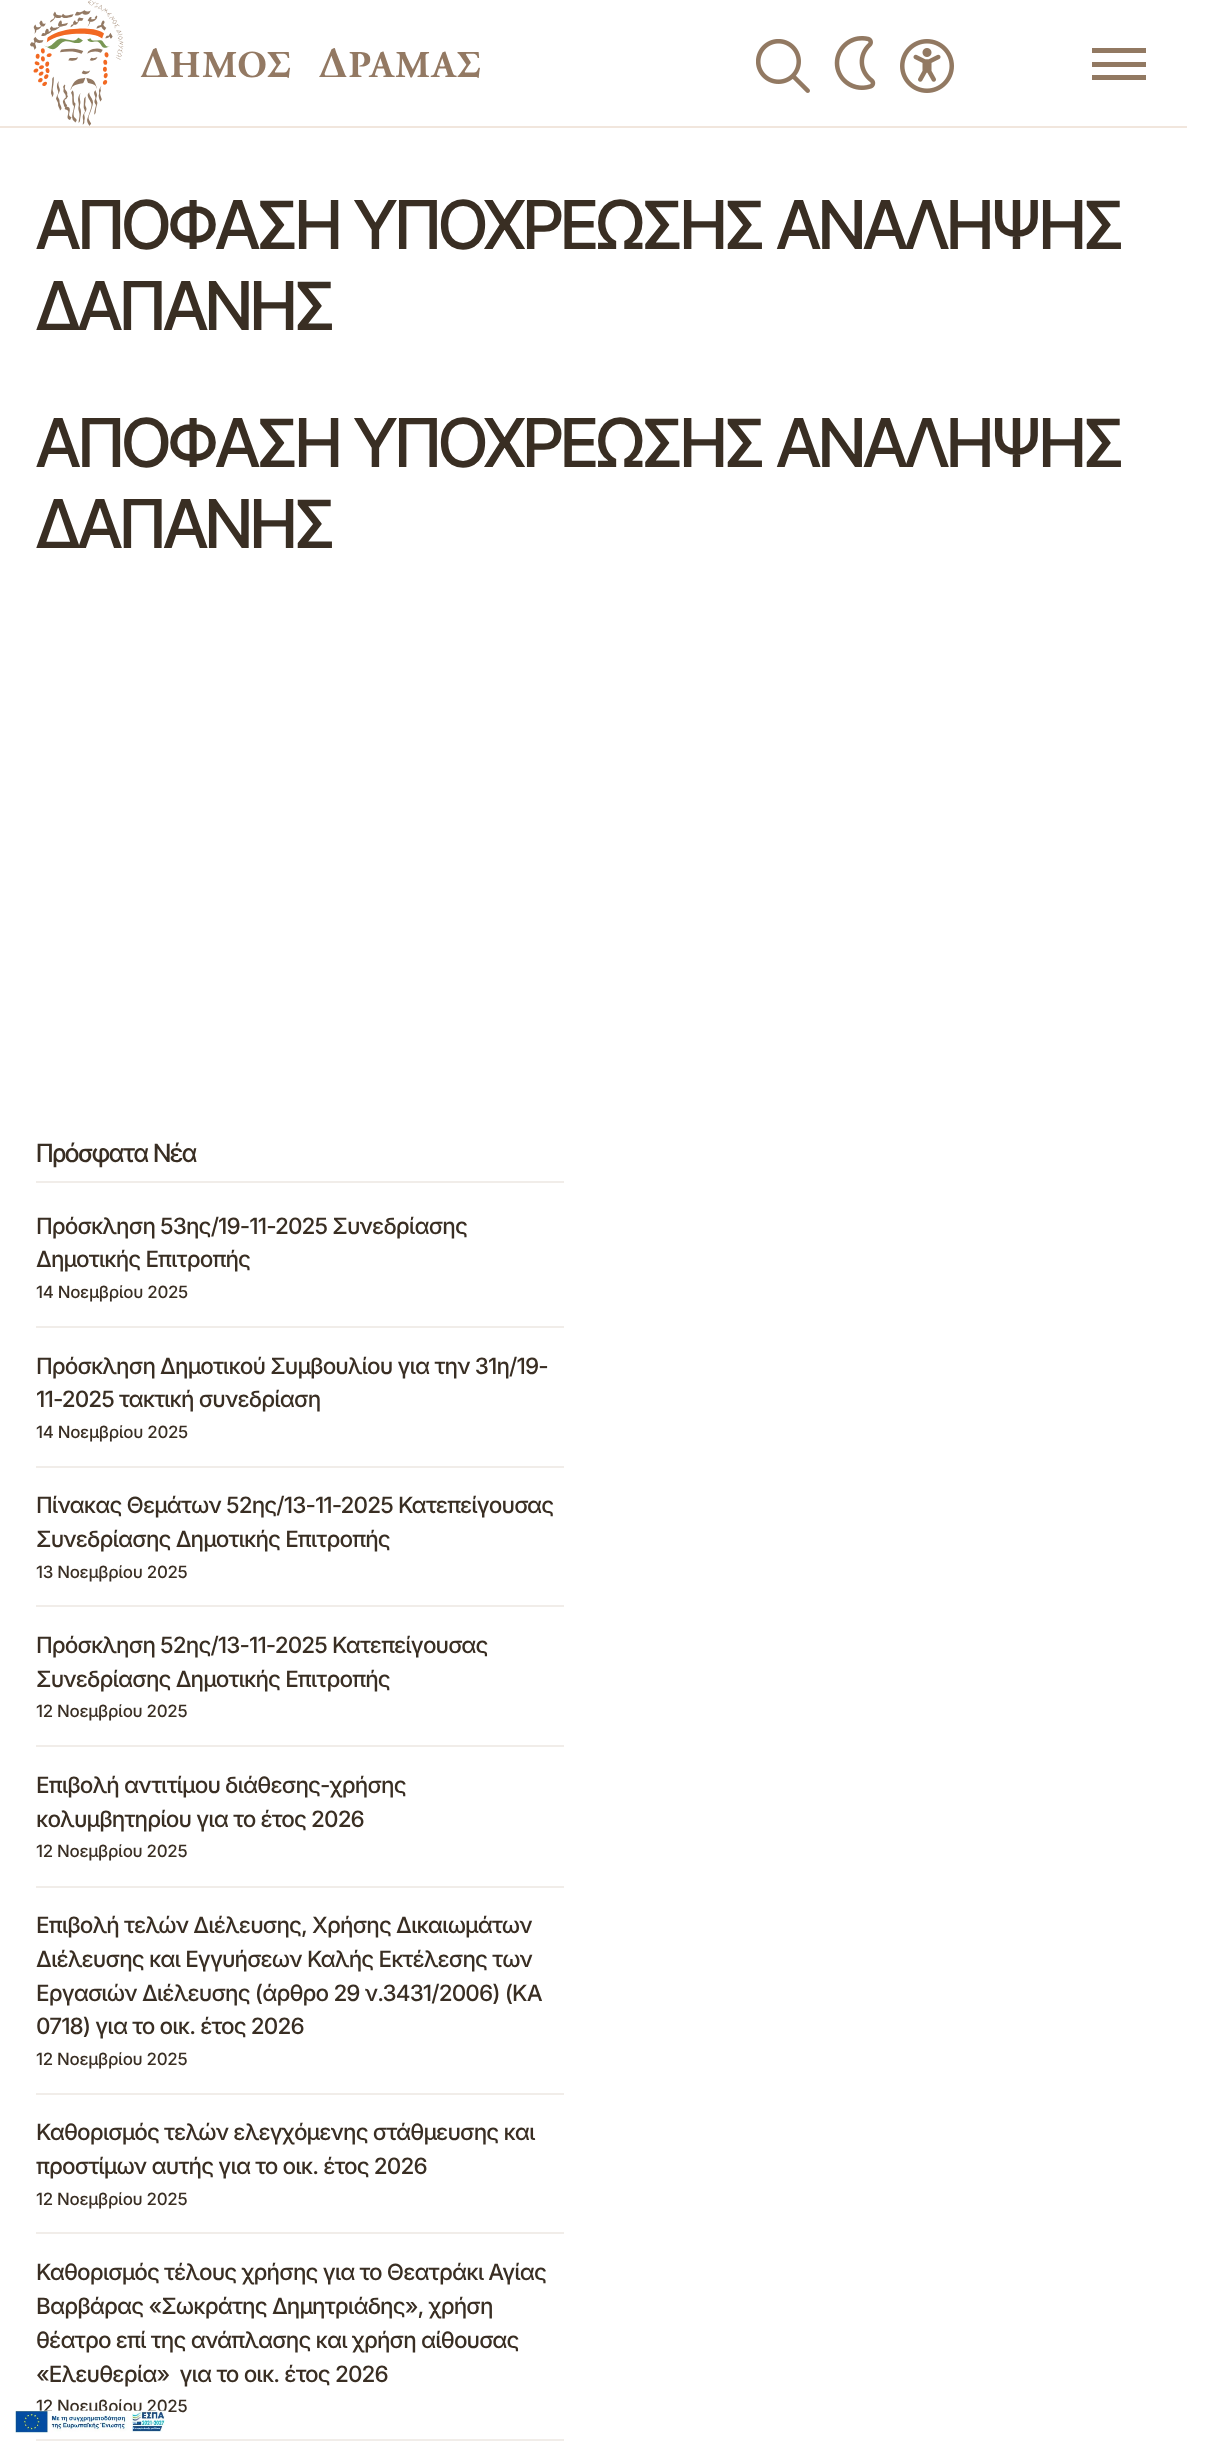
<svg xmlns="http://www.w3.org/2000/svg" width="1208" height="2452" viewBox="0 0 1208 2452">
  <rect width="100%" height="100%" fill="#fff"/>
  <path d="M0 126h1187v2H0z" fill="#f1e6dd"/>
  <image x="30" y="0" width="450" height="126" href="img/1.png"/>
  <image x="756" y="39" width="54" height="54" href="img/2.png"/>
  <image x="834" y="36" width="42" height="54" href="img/3.png"/>
  <image x="900" y="39" width="54" height="54" href="img/4.png"/>
  <path d="M1092 48h54v5H1092z" fill="#927962"/>
  <path d="M1092 62h54v5H1092z" fill="#927962"/>
  <path d="M1092 75h54v5H1092z" fill="#927962"/>
  <path d="M36 1181h528v2H36z" fill="#f1ede9"/>
  <path d="M36 1326h528v2H36z" fill="#f1ede9"/>
  <path d="M36 1466h528v2H36z" fill="#f1ede9"/>
  <path d="M36 1605h528v2H36z" fill="#f1ede9"/>
  <path d="M36 1745h528v2H36z" fill="#f1ede9"/>
  <path d="M36 1886h528v2H36z" fill="#f1ede9"/>
  <path d="M36 2093h528v2H36z" fill="#f1ede9"/>
  <path d="M36 2232h528v2H36z" fill="#f1ede9"/>
  <path d="M36 2439h528v2H36z" fill="#f1ede9"/>
  <g font-family="Inter Tight" font-size="67.5" font-weight="500" letter-spacing="-2.7" fill="#392e23">
    <text x="36" y="249">ΑΠΟΦΑΣΗ ΥΠΟΧΡΕΩΣΗΣ ΑΝΑΛΗΨΗΣ</text>
    <text x="36" y="330">ΔΑΠΑΝΗΣ</text>
    <text x="36" y="467">ΑΠΟΦΑΣΗ ΥΠΟΧΡΕΩΣΗΣ ΑΝΑΛΗΨΗΣ</text>
    <text x="36" y="548">ΔΑΠΑΝΗΣ</text>
  </g>
  <text x="36" y="1162" font-family="Inter Tight" font-size="25.25" font-weight="500" letter-spacing="-1" fill="#392e23">Πρόσφατα Νέα</text>
  <g font-family="Inter" font-size="22.5" font-weight="500" letter-spacing="-0.9" fill="#392e23">
    <text x="36" y="1234">Πρόσκληση 53ης/19-11-2025 Συνεδρίασης</text>
    <text x="36" y="1267">Δημοτικής Επιτροπής</text>
  </g>
  <text x="36" y="1298" font-family="Inter" font-size="16.9" font-weight="500" letter-spacing="-0.3" fill="#392e23">14 Νοεμβρίου 2025</text>
  <g font-family="Inter" font-size="22.5" font-weight="500" letter-spacing="-0.9" fill="#392e23">
    <text x="36" y="1374">Πρόσκληση Δημοτικού Συμβουλίου για την 31η/19-</text>
    <text x="36" y="1407">11-2025 τακτική συνεδρίαση</text>
  </g>
  <text x="36" y="1438" font-family="Inter" font-size="16.9" font-weight="500" letter-spacing="-0.3" fill="#392e23">14 Νοεμβρίου 2025</text>
  <g font-family="Inter" font-size="22.5" font-weight="500" letter-spacing="-0.9" fill="#392e23">
    <text x="36" y="1513">Πίνακας Θεμάτων 52ης/13-11-2025 Κατεπείγουσας</text>
    <text x="36" y="1547">Συνεδρίασης Δημοτικής Επιτροπής</text>
  </g>
  <text x="36" y="1578" font-family="Inter" font-size="16.9" font-weight="500" letter-spacing="-0.3" fill="#392e23">13 Νοεμβρίου 2025</text>
  <g font-family="Inter" font-size="22.5" font-weight="500" letter-spacing="-0.9" fill="#392e23">
    <text x="36" y="1653">Πρόσκληση 52ης/13-11-2025 Κατεπείγουσας</text>
    <text x="36" y="1687">Συνεδρίασης Δημοτικής Επιτροπής</text>
  </g>
  <text x="36" y="1717" font-family="Inter" font-size="16.9" font-weight="500" letter-spacing="-0.3" fill="#392e23">12 Νοεμβρίου 2025</text>
  <g font-family="Inter" font-size="22.5" font-weight="500" letter-spacing="-0.9" fill="#392e23">
    <text x="36" y="1793">Επιβολή αντιτίμου διάθεσης-χρήσης</text>
    <text x="36" y="1827">κολυμβητηρίου για το έτος 2026</text>
  </g>
  <text x="36" y="1857" font-family="Inter" font-size="16.9" font-weight="500" letter-spacing="-0.3" fill="#392e23">12 Νοεμβρίου 2025</text>
  <g font-family="Inter" font-size="22.5" font-weight="500" letter-spacing="-0.9" fill="#392e23">
    <text x="36" y="1933">Eπιβολή τελών Διέλευσης, Χρήσης Δικαιωμάτων</text>
    <text x="36" y="1967">Διέλευσης και Εγγυήσεων Καλής Εκτέλεσης των</text>
    <text x="36" y="2001">Εργασιών Διέλευσης (άρθρο 29 ν.3431/2006) (ΚΑ</text>
    <text x="36" y="2034">0718) για το οικ. έτος 2026</text>
  </g>
  <text x="36" y="2065" font-family="Inter" font-size="16.9" font-weight="500" letter-spacing="-0.3" fill="#392e23">12 Νοεμβρίου 2025</text>
  <g font-family="Inter" font-size="22.5" font-weight="500" letter-spacing="-0.9" fill="#392e23">
    <text x="36" y="2140">Καθορισμός τελών ελεγχόμενης στάθμευσης και</text>
    <text x="36" y="2174">προστίμων αυτής για το οικ. έτος 2026</text>
  </g>
  <text x="36" y="2205" font-family="Inter" font-size="16.9" font-weight="500" letter-spacing="-0.3" fill="#392e23">12 Νοεμβρίου 2025</text>
  <g font-family="Inter" font-size="22.5" font-weight="500" letter-spacing="-0.9" fill="#392e23">
    <text x="36" y="2280">Καθορισμός τέλους χρήσης για το Θεατράκι Αγίας</text>
    <text x="36" y="2314">Βαρβάρας «Σωκράτης Δημητριάδης», χρήση</text>
    <text x="36" y="2348">θέατρο επί της ανάπλασης και χρήση αίθουσας</text>
    <text x="36" y="2382" xml:space="preserve">«Ελευθερία»  για το οικ. έτος 2026</text>
  </g>
  <text x="36" y="2412" font-family="Inter" font-size="16.9" font-weight="500" letter-spacing="-0.3" fill="#392e23">12 Νοεμβρίου 2025</text>
  <image x="15" y="2410" width="150" height="23" href="img/5.png"/>
</svg>
